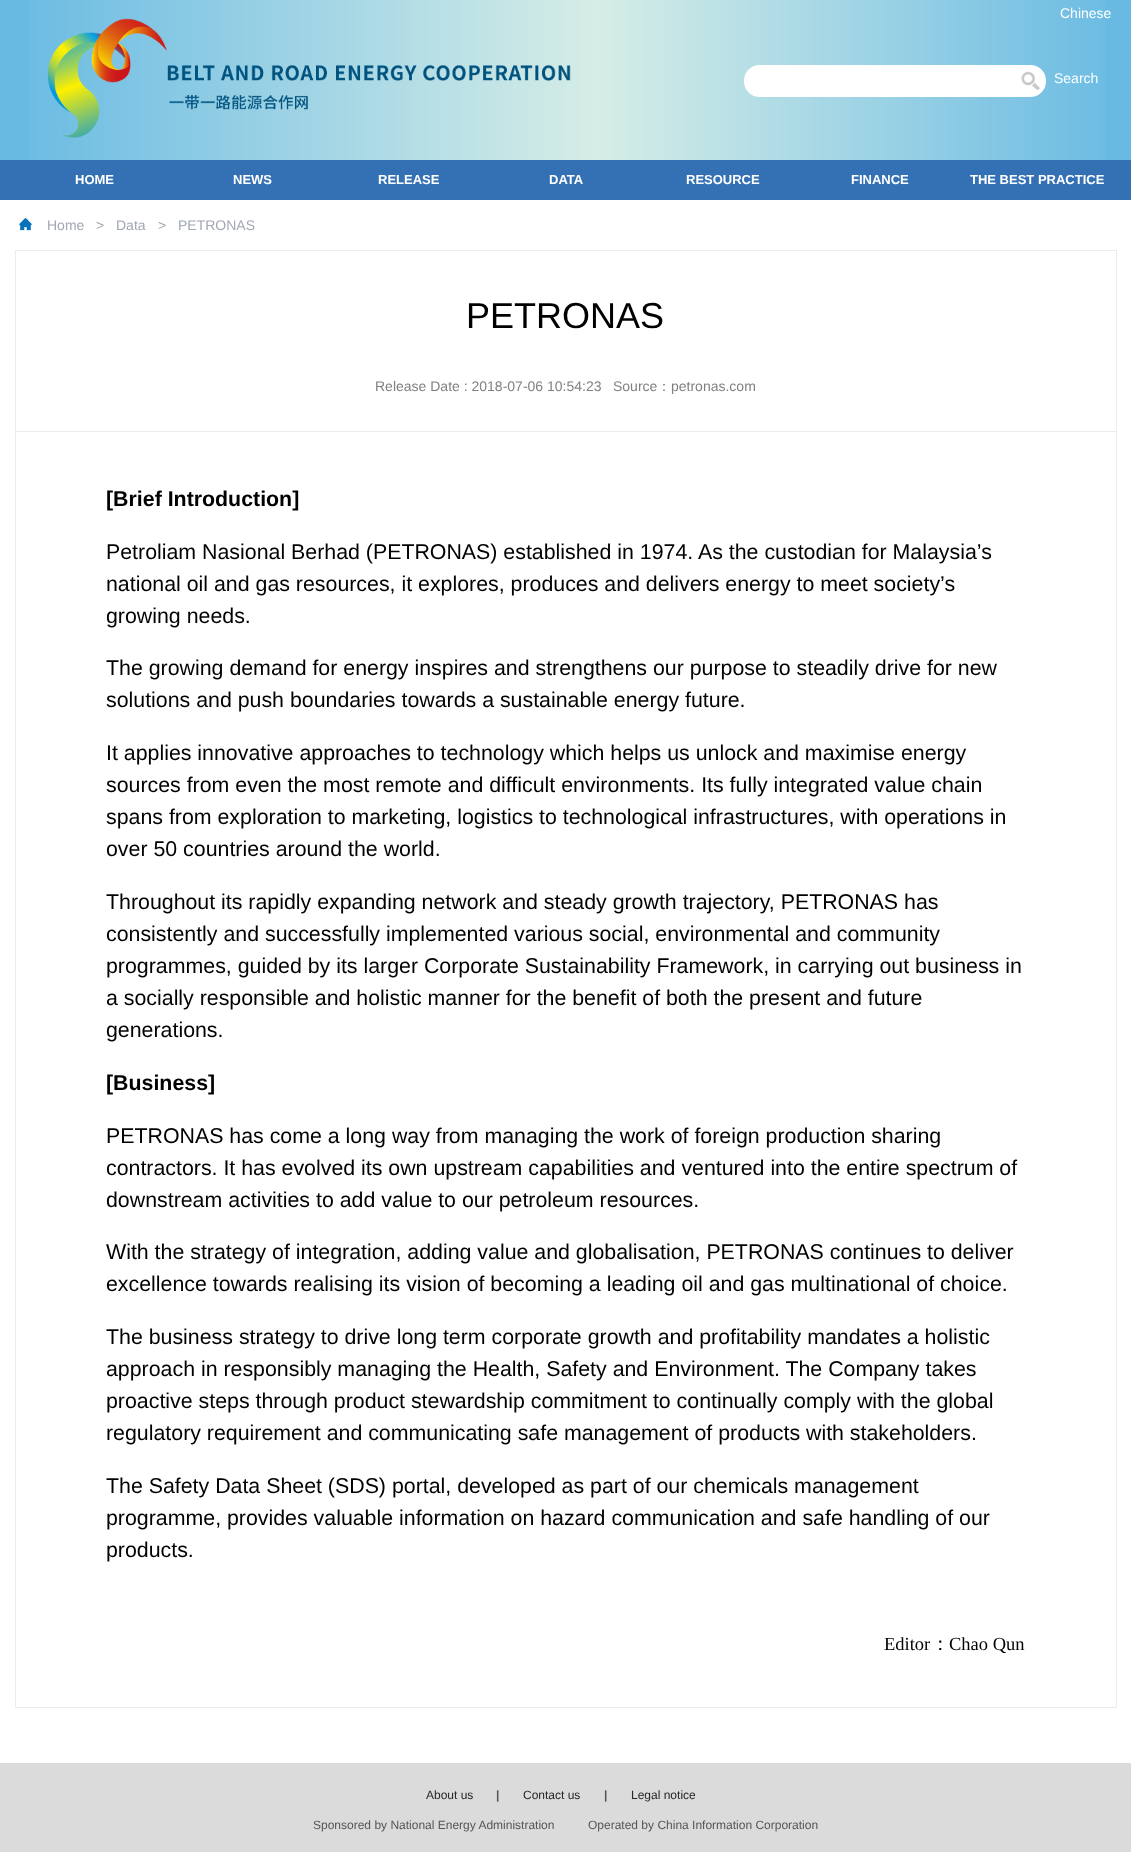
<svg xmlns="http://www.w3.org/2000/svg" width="1131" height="1852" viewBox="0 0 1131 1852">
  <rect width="100%" height="100%" fill="#fff"/>
  <path d="M0 0h1131v160H0z" fill="#68bae3"/>
  <image x="29" y="0" width="1076" height="160" href="img/1.png"/>
  <image x="47" y="18" width="524" height="120" href="img/2.png"/>
  <rect x="744.5" y="65.5" width="301" height="31" rx="14.5" fill="#fff" stroke="#fff"/>
  <image x="1021" y="71" width="19" height="20" href="img/3.png"/>
  <path d="M0 160h1131v40H0z" fill="#3471b4"/>
  <image x="19" y="218" width="13" height="13" href="img/4.png"/>
  <path d="M15.5 250.5h1101v1457H15.5z" fill="none" stroke="#ebebec"/>
  <path d="M16 431h1100v1H16z" fill="#ebebec"/>
  <path d="M0 1763h1131v89H0z" fill="#dbdbdb"/>
  <g font-family="Liberation Sans" font-size="14" fill="#fff">
    <text x="1060" y="18">Chinese</text>
    <text x="1054" y="83">Search</text>
  </g>
  <g font-family="Liberation Sans" font-size="13" font-weight="bold" fill="#fff">
    <text x="75" y="184">HOME</text>
    <text x="233" y="184">NEWS</text>
    <text x="378" y="184">RELEASE</text>
    <text x="549" y="184">DATA</text>
    <text x="686" y="184">RESOURCE</text>
    <text x="851" y="184">FINANCE</text>
    <text x="970" y="184">THE BEST PRACTICE</text>
  </g>
  <g font-family="Liberation Sans" font-size="14" fill="#a1a7b3">
    <text x="47" y="230">Home</text>
    <text x="96" y="230">&gt;</text>
    <text x="116" y="230">Data</text>
    <text x="158" y="230">&gt;</text>
    <text x="178" y="230">PETRONAS</text>
  </g>
  <text x="466" y="328" font-family="Liberation Sans" font-size="36" fill="#000">PETRONAS</text>
  <g font-family="Liberation Sans" font-size="14" fill="#808080">
    <text x="375" y="391">Release Date : 2018-07-06 10:54:23</text>
    <text x="613" y="391">Source</text>
  </g>
  <text x="657" y="391" font-family="WenQuanYi Zen Hei" font-size="14" font-weight="500" fill="#808080">：</text>
  <text x="671" y="391" font-family="Liberation Sans" font-size="14" fill="#808080">petronas.com</text>
  <text x="106" y="506" font-family="Liberation Sans" font-size="21.35" font-weight="bold" fill="#000">[Brief Introduction]</text>
  <g font-family="Liberation Sans" font-size="21.35" fill="#000">
    <text x="106" y="559">Petroliam Nasional Berhad (PETRONAS) established in 1974. As the custodian for Malaysia’s</text>
    <text x="106" y="591">national oil and gas resources, it explores, produces and delivers energy to meet society’s</text>
    <text x="106" y="623">growing needs.</text>
    <text x="106" y="675">The growing demand for energy inspires and strengthens our purpose to steadily drive for new</text>
    <text x="106" y="707">solutions and push boundaries towards a sustainable energy future.</text>
    <text x="106" y="760">It applies innovative approaches to technology which helps us unlock and maximise energy</text>
    <text x="106" y="792">sources from even the most remote and difficult environments. Its fully integrated value chain</text>
    <text x="106" y="824">spans from exploration to marketing, logistics to technological infrastructures, with operations in</text>
    <text x="106" y="856">over 50 countries around the world.</text>
    <text x="106" y="909">Throughout its rapidly expanding network and steady growth trajectory, PETRONAS has</text>
    <text x="106" y="941">consistently and successfully implemented various social, environmental and community</text>
    <text x="106" y="973">programmes, guided by its larger Corporate Sustainability Framework, in carrying out business in</text>
    <text x="106" y="1005">a socially responsible and holistic manner for the benefit of both the present and future</text>
    <text x="106" y="1037">generations.</text>
  </g>
  <text x="106" y="1090" font-family="Liberation Sans" font-size="21.35" font-weight="bold" fill="#000">[Business]</text>
  <g font-family="Liberation Sans" font-size="21.35" fill="#000">
    <text x="106" y="1143">PETRONAS has come a long way from managing the work of foreign production sharing</text>
    <text x="106" y="1175">contractors. It has evolved its own upstream capabilities and ventured into the entire spectrum of</text>
    <text x="106" y="1207">downstream activities to add value to our petroleum resources.</text>
    <text x="106" y="1259">With the strategy of integration, adding value and globalisation, PETRONAS continues to deliver</text>
    <text x="106" y="1291">excellence towards realising its vision of becoming a leading oil and gas multinational of choice.</text>
    <text x="106" y="1344">The business strategy to drive long term corporate growth and profitability mandates a holistic</text>
    <text x="106" y="1376">approach in responsibly managing the Health, Safety and Environment. The Company takes</text>
    <text x="106" y="1408">proactive steps through product stewardship commitment to continually comply with the global</text>
    <text x="106" y="1440">regulatory requirement and communicating safe management of products with stakeholders.</text>
    <text x="106" y="1493">The Safety Data Sheet (SDS) portal, developed as part of our chemicals management</text>
    <text x="106" y="1525">programme, provides valuable information on hazard communication and safe handling of our</text>
    <text x="106" y="1557">products.</text>
  </g>
  <text x="884" y="1650" font-family="Liberation Serif" font-size="18.5" fill="#000">Editor</text>
  <text x="931" y="1650" font-family="WenQuanYi Zen Hei" font-size="18.5" font-weight="500" fill="#000">：</text>
  <text x="949" y="1650" font-family="Liberation Serif" font-size="18.5" fill="#000">Chao Qun</text>
  <text x="426" y="1799" font-family="Liberation Sans" font-size="12" fill="#262626">About us</text>
  <text x="496" y="1799" font-family="Liberation Sans" font-size="12" font-weight="bold" fill="#555">|</text>
  <text x="523" y="1799" font-family="Liberation Sans" font-size="12" fill="#262626">Contact us</text>
  <text x="604" y="1799" font-family="Liberation Sans" font-size="12" font-weight="bold" fill="#555">|</text>
  <text x="631" y="1799" font-family="Liberation Sans" font-size="12" fill="#262626">Legal notice</text>
  <g font-family="Liberation Sans" font-size="12" fill="#555">
    <text x="313" y="1829">Sponsored by National Energy Administration</text>
    <text x="588" y="1829">Operated by China Information Corporation</text>
  </g>
</svg>
